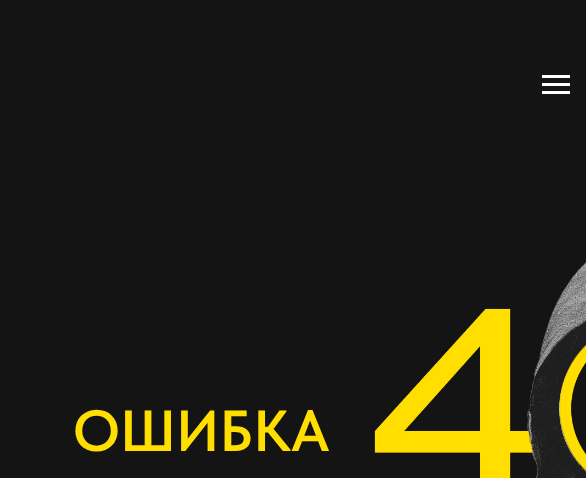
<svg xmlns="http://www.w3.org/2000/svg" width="586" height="478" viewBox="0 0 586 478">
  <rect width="100%" height="100%" fill="#141414"/>
  <path d="M542 75h28v3H542z" fill="#fff"/>
  <path d="M542 83h28v3H542z" fill="#fff"/>
  <path d="M542 91h28v3H542z" fill="#fff"/>
  <image x="374" y="262" width="212" height="216" href="img/1.png"/>
  <text x="73" y="451" font-family="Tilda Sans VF" font-size="58" font-weight="600" fill="#ffde00">ОШИБКА</text>
</svg>
